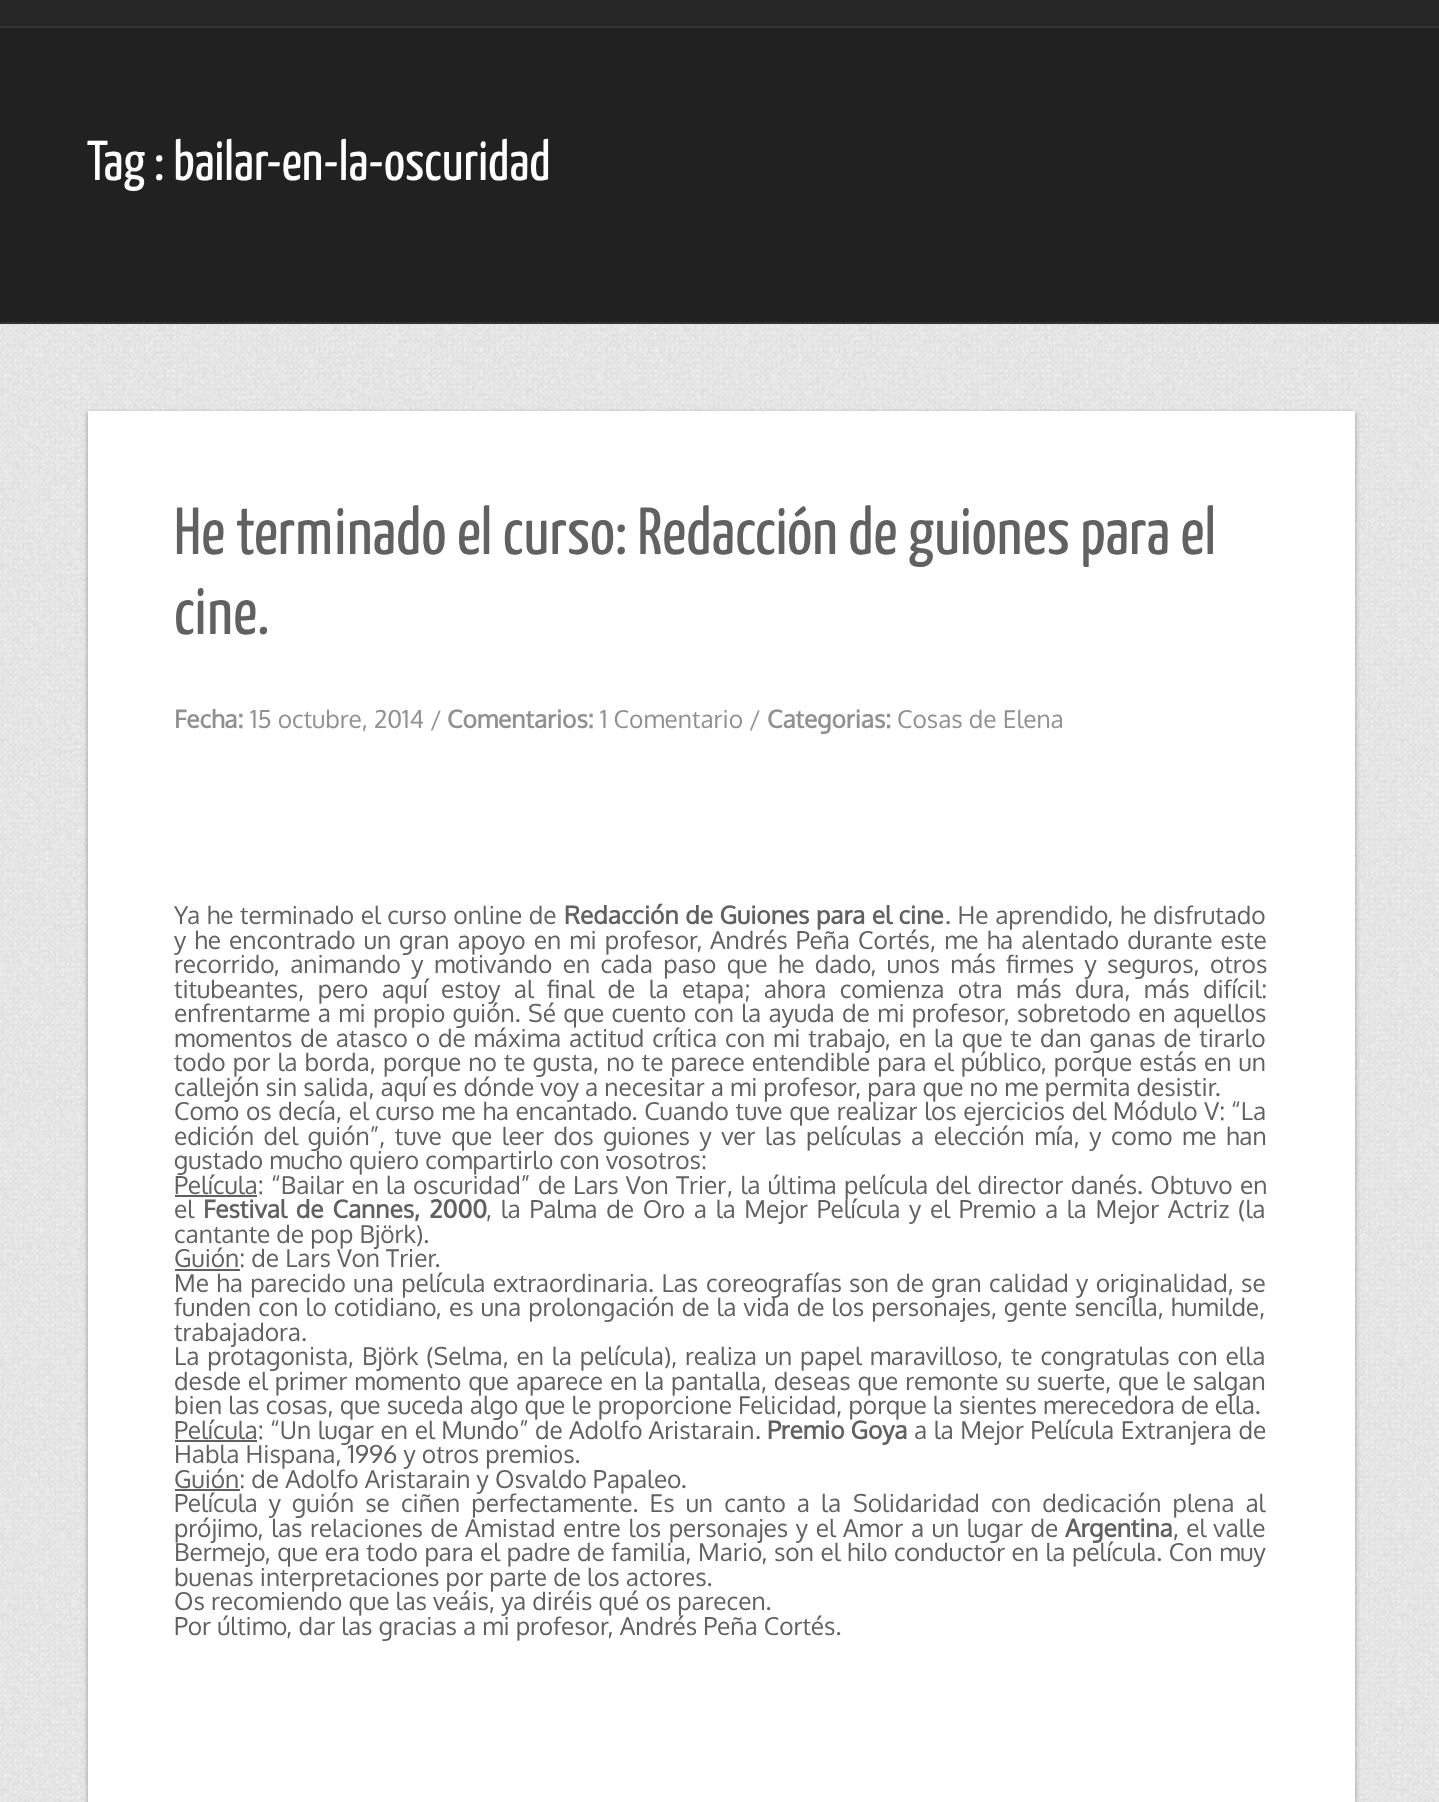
<svg xmlns="http://www.w3.org/2000/svg" width="1439" height="1802" viewBox="0 0 1439 1802">
  <rect width="100%" height="100%" fill="#fff"/>
  <image x="0" y="324" width="1439" height="1478" href="img/1.png"/>
  <path d="M0 0h1439v26H0z" fill="#262626"/>
  <path d="M0 26h1439v2H0z" fill="#333"/>
  <path d="M0 28h1439v294H0z" fill="#212121"/>
  <path d="M0 322h1439v2H0z" fill="#333"/>
  <path d="M88 413h1267v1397H88z" fill="#22191966" filter="blur(2.5px)"/>
  <path d="M88 411h1267v1391H88z" fill="#fff"/>
  <path d="M175 1195h82v2H175z" fill="#616161"/>
  <path d="M175 1269h65v2H175z" fill="#616161"/>
  <path d="M175 1440h82v2H175z" fill="#616161"/>
  <path d="M175 1489h65v2H175z" fill="#616161"/>
  <text x="87" y="180" font-family="Yanone Kaffeesatz" font-size="56" fill="#fff">Tag : bailar-en-la-oscuridad</text>
  <g font-family="Yanone Kaffeesatz" font-size="66.5" fill="#616161">
    <text x="174" y="554">He terminado el curso: Redacción de guiones para el</text>
    <text x="174" y="634">cine.</text>
  </g>
  <text x="174" y="728" font-family="Oxygen" font-size="24.5" font-weight="bold" fill="#919191">Fecha:</text>
  <text x="250" y="728" font-family="Oxygen" font-size="24.5" fill="#919191">15 octubre, 2014 /</text>
  <text x="447" y="728" font-family="Oxygen" font-size="24.5" font-weight="bold" fill="#919191">Comentarios:</text>
  <text x="600" y="728" font-family="Oxygen" font-size="24.5" fill="#919191">1 Comentario /</text>
  <text x="767" y="728" font-family="Oxygen" font-size="24.5" font-weight="bold" fill="#919191">Categorias:</text>
  <text x="897" y="728" font-family="Oxygen" font-size="24.5" fill="#919191">Cosas de Elena</text>
  <text x="174" y="924" word-spacing="0.5" font-family="Oxygen" font-size="24.5" fill="#616161">Ya he terminado el curso online de</text>
  <text x="564" y="924" word-spacing="0.5" font-family="Oxygen" font-size="24.5" font-weight="bold" fill="#616161">Redacción de Guiones para el cine</text>
  <g font-family="Oxygen" font-size="24.5" fill="#616161">
    <text x="945" y="924" word-spacing="0.5">. He aprendido, he disfrutado</text>
    <text x="174" y="949" word-spacing="2">y he encontrado un gran apoyo en mi profesor,</text>
    <text x="710" y="949" word-spacing="2">Andrés Peña Cortés</text>
    <text x="930" y="949" word-spacing="2">, me ha alentado durante este</text>
    <text x="174" y="973" word-spacing="4.25">recorrido, animando y motivando en cada paso que he dado, unos más firmes y seguros, otros</text>
    <text x="174" y="998" word-spacing="7.25">titubeantes, pero aquí estoy al final de la etapa; ahora comienza otra más dura, más difícil:</text>
    <text x="174" y="1022" word-spacing="1.25">enfrentarme a mi propio guión. Sé que cuento con la ayuda de mi profesor, sobretodo en aquellos</text>
    <text x="174" y="1047" word-spacing="1.75">momentos de atasco o de máxima actitud crítica con mi trabajo, en la que te dan ganas de tirarlo</text>
    <text x="174" y="1071" word-spacing="1">todo por la borda, porque no te gusta, no te parece entendible para el público, porque estás en un</text>
    <text x="174" y="1096">callejón sin salida, aquí es dónde voy a necesitar a mi profesor, para que no me permita desistir.</text>
    <text x="174" y="1120" word-spacing="0.5">Como os decía, el curso me ha encantado. Cuando tuve que realizar los ejercicios del Módulo V:</text>
    <text x="1231" y="1120">“La</text>
    <text x="174" y="1145" word-spacing="3.4">edición del guión”, tuve que leer dos guiones y ver las películas a elección mía, y como me han</text>
    <text x="174" y="1169">gustado mucho quiero compartirlo con vosotros:</text>
    <text x="174" y="1194">Película:</text>
    <text x="271" y="1194" word-spacing="1">“Bailar en la oscuridad”</text>
    <text x="538" y="1194">de</text>
    <text x="573" y="1194" word-spacing="1">Lars Von Trier</text>
    <text x="727" y="1194" word-spacing="1.25">, la última película del director danés. Obtuvo en</text>
    <text x="174" y="1218">el</text>
  </g>
  <text x="203" y="1218" word-spacing="3" font-family="Oxygen" font-size="24.5" font-weight="bold" fill="#616161">Festival de Cannes, 2000</text>
  <g font-family="Oxygen" font-size="24.5" fill="#616161">
    <text x="486" y="1218" word-spacing="2.6">, la Palma de Oro a la Mejor Película y el Premio a la Mejor Actriz (la</text>
    <text x="174" y="1243">cantante de pop Björk).</text>
    <text x="174" y="1267">Guión: de Lars Von Trier.</text>
    <text x="174" y="1292" word-spacing="1.25">Me ha parecido una película extraordinaria. Las</text>
    <text x="706" y="1292">coreografías</text>
    <text x="849" y="1292" word-spacing="1.25">son de gran calidad y originalidad, se</text>
    <text x="174" y="1316" word-spacing="1">funden con lo cotidiano, es una prolongación de la vida de los personajes, gente sencilla, humilde,</text>
    <text x="174" y="1341">trabajadora.</text>
    <text x="174" y="1365" word-spacing="1.75">La protagonista, Björk (Selma, en la película), realiza un papel maravilloso, te congratulas con ella</text>
    <text x="174" y="1390" word-spacing="0.75">desde el primer momento que aparece en la pantalla, deseas que remonte su suerte, que le salgan</text>
    <text x="174" y="1414">bien las cosas, que suceda algo que le proporcione Felicidad, porque la sientes merecedora de ella.</text>
    <text x="174" y="1439">Película:</text>
    <text x="270" y="1439" word-spacing="0.5">“Un lugar en el Mundo”</text>
    <text x="535" y="1439">de</text>
    <text x="569" y="1439">Adolfo Aristarain</text>
    <text x="755" y="1439">.</text>
  </g>
  <text x="767" y="1439" font-family="Oxygen" font-size="24.5" font-weight="bold" fill="#616161">Premio Goya</text>
  <g font-family="Oxygen" font-size="24.5" fill="#616161">
    <text x="914" y="1439" word-spacing="0.5">a la Mejor Película Extranjera de</text>
    <text x="174" y="1463">Habla Hispana, 1996 y otros premios.</text>
    <text x="174" y="1488">Guión: de Adolfo Aristarain y Osvaldo Papaleo.</text>
    <text x="174" y="1512" word-spacing="5">Película y guión se ciñen perfectamente. Es un canto a la</text>
    <text x="853" y="1512">Solidaridad</text>
    <text x="991" y="1512" word-spacing="5">con dedicación plena al</text>
    <text x="174" y="1537" word-spacing="1.5">prójimo, las relaciones de</text>
    <text x="465" y="1537">Amistad</text>
    <text x="563" y="1537" word-spacing="1.5">entre los personajes y el</text>
    <text x="843" y="1537">Amor</text>
    <text x="911" y="1537" word-spacing="1.5">a un lugar de</text>
  </g>
  <text x="1065" y="1537" font-family="Oxygen" font-size="24.5" font-weight="bold" fill="#616161">Argentina</text>
  <g font-family="Oxygen" font-size="24.5" fill="#616161">
    <text x="1173" y="1537" word-spacing="1">, el valle</text>
    <text x="174" y="1561" word-spacing="0.4">Bermejo, que era todo para el padre de familia, Mario, son el hilo conductor en la película. Con muy</text>
    <text x="174" y="1586">buenas interpretaciones por parte de los actores.</text>
    <text x="174" y="1610">Os recomiendo que las veáis, ya diréis qué os parecen.</text>
    <text x="174" y="1635">Por último, dar las gracias a mi profesor, Andrés Peña Cortés.</text>
  </g>
</svg>
